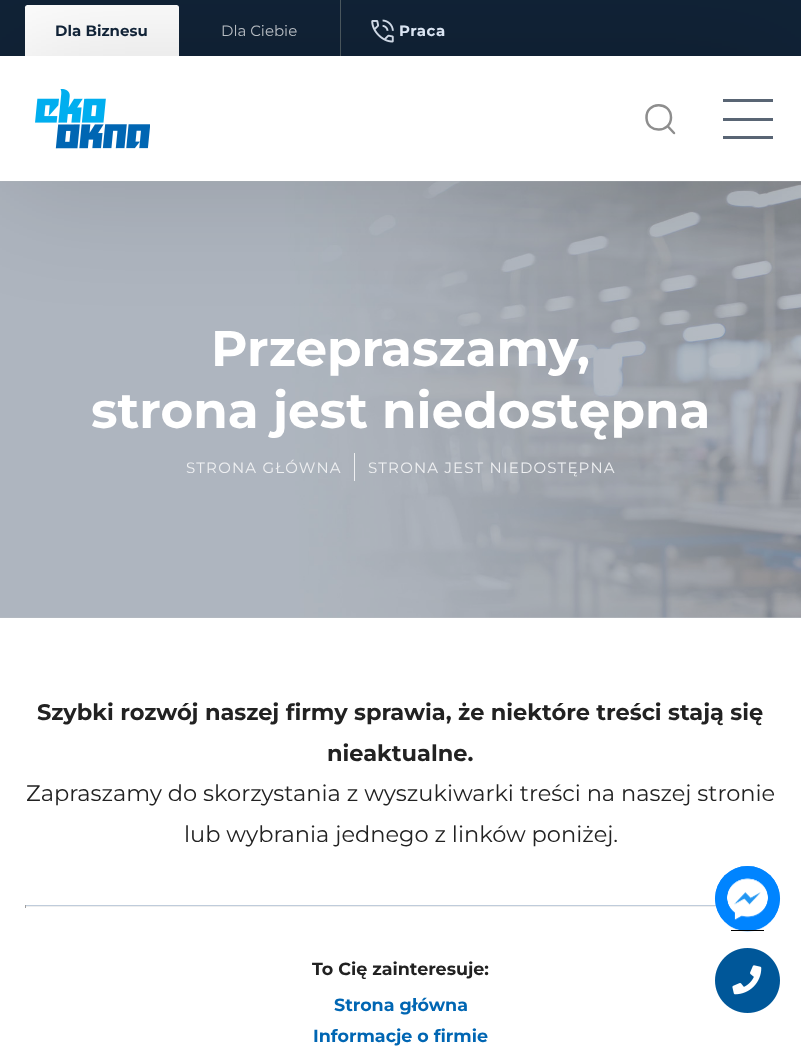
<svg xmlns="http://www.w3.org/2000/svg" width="801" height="1048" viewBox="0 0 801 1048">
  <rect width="100%" height="100%" fill="#fff"/>
  <path d="M0 181h801v437H0z" fill="#b8bdc3"/>
  <path d="M0 0h801v56H0z" fill="#112337"/>
  <path d="M27.5 5H176.5C178 5 179 6 179 7.5V56H25V7.5C25 6 26 5 27.5 5Z" fill="#fff"/>
  <path d="M340 0h1v56H340z" fill="#4d5a61"/>
  <image x="371" y="19" width="23" height="24" href="img/2.png"/>
  <image x="0" y="181" width="801" height="437" href="img/3.png"/>
  <path d="M0 56h801v125H0z" fill="#00000026" filter="blur(62px)"/>
  <path d="M0 56h801v125H0z" fill="#fff"/>
  <image x="35" y="89" width="115" height="60" href="img/1.png"/>
  <path d="M671 117.5C671 133 647 134 646.5 118C645.5 101.5 671 100.5 671 117.5ZM674 133L667.5 126" fill="none" stroke="#8e8e8e" stroke-width="2.5" stroke-linecap="round" stroke-linejoin="round"/>
  <path d="M723 99h50v3H723z" fill="#596574"/>
  <path d="M723 118h50v3H723z" fill="#596574"/>
  <path d="M723 136h50v3H723z" fill="#596574"/>
  <path d="M354 453h1v28H354z" fill="#eff0f2"/>
  <path d="M25 905h691v1H25z" fill="#bfccdb"/>
  <path d="M25 906h692v1H25z" fill="#eee"/>
  <path d="M25 905h1v3H25z" fill="#9f9f9f"/>
  <circle cx="747.5" cy="898.5" r="32.5" fill="#0084ff"/>
  <image x="715" y="866" width="65" height="66" href="img/4.png"/>
  <path d="M731 930h33v1H731z" fill="#000"/>
  <image x="715" y="948" width="65" height="65" href="img/5.png"/>
  <text x="55" y="36" font-family="Montserrat" font-size="15" font-weight="bold" fill="#112337">Dla Biznesu</text>
  <text x="221" y="36" font-family="Montserrat" font-size="15" fill="#b8bdc3">Dla Ciebie</text>
  <text x="399" y="36" font-family="Montserrat" font-size="15" font-weight="bold" letter-spacing="0.5" fill="#dae4f2">Praca</text>
  <g font-family="Montserrat" font-size="50" font-weight="bold" fill="#fff">
    <text x="211" y="366">Przepraszamy,</text>
    <text x="91" y="428">strona jest niedostępna</text>
  </g>
  <g font-family="Montserrat" font-size="15" letter-spacing="1.2" fill="#eff0f2">
    <text x="186" y="473">STRONA GŁÓWNA</text>
    <text x="368" y="473">STRONA JEST NIEDOSTĘPNA</text>
  </g>
  <g font-family="Montserrat" font-size="22.5" font-weight="bold" fill="#222">
    <text x="37" y="720">Szybki rozwój naszej firmy sprawia, że niektóre treści stają się</text>
    <text x="327" y="761">nieaktualne.</text>
  </g>
  <g font-family="Montserrat" font-size="22.5" fill="#222">
    <text x="26" y="801">Zapraszamy do skorzystania z wyszukiwarki treści na naszej stronie</text>
    <text x="184" y="842">lub wybrania jednego z linków poniżej.</text>
  </g>
  <text x="312" y="975" font-family="Montserrat" font-size="17.5" font-weight="bold" fill="#222">To Cię zainteresuje:</text>
  <g font-family="Montserrat" font-size="17.5" font-weight="bold" fill="#0066b3">
    <text x="334" y="1011">Strona główna</text>
    <text x="313" y="1042">Informacje o firmie</text>
  </g>
</svg>
